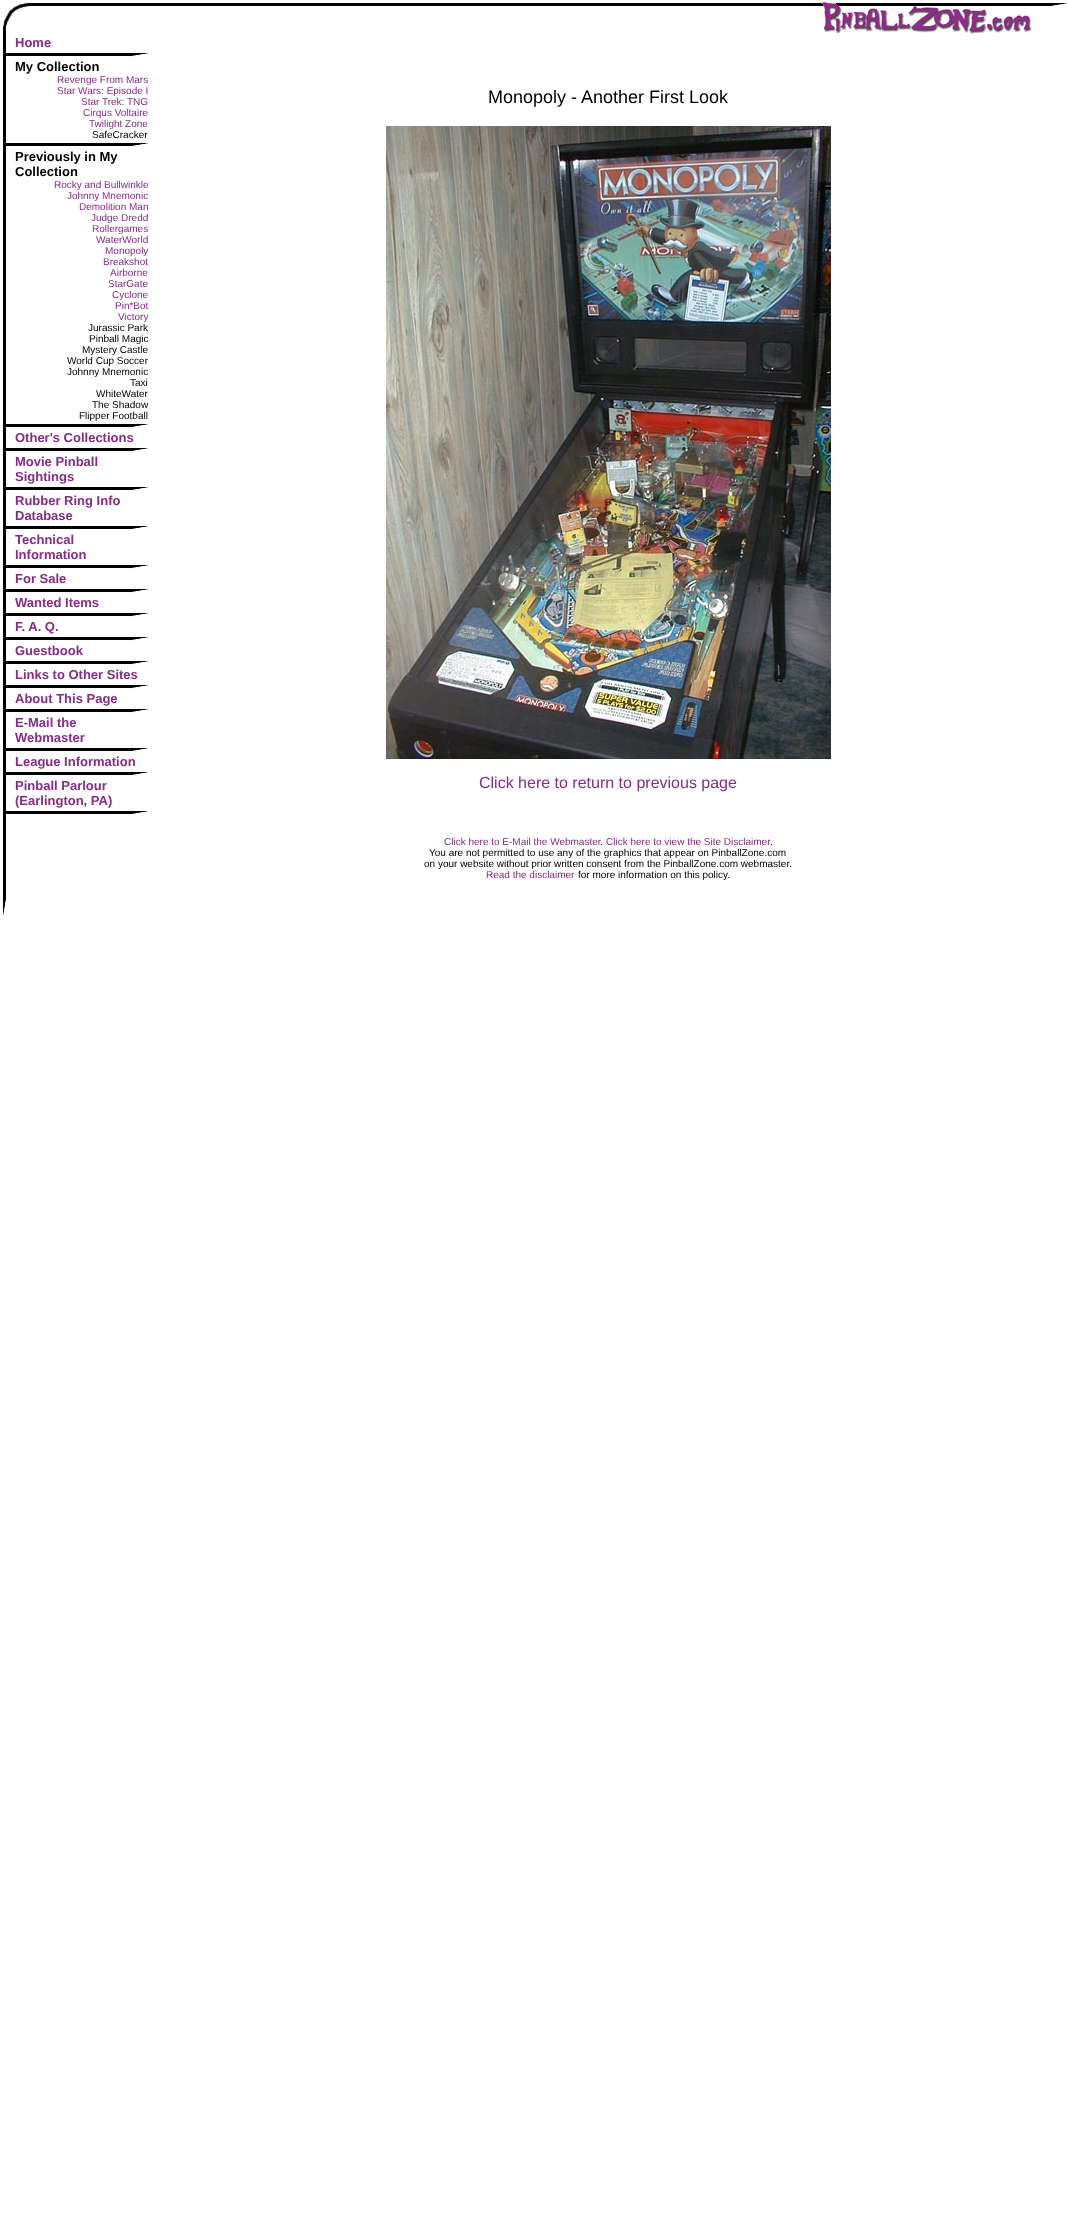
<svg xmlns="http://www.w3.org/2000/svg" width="1068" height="2226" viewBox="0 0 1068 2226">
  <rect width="100%" height="100%" fill="#fff"/>
  <path d="M28 3h794v3H28z" fill="#000"/>
  <image x="0" y="3" width="28" height="32" href="img/1.png"/>
  <image x="822" y="2" width="246" height="32" href="img/2.png"/>
  <path d="M3 35h3v15H3z" fill="#000"/>
  <image x="2" y="50" width="146" height="9" href="img/3.png"/>
  <path d="M3 59h3v81H3z" fill="#000"/>
  <image x="2" y="140" width="146" height="9" href="img/3.png"/>
  <path d="M3 149h3v272H3z" fill="#000"/>
  <path d="M3 430h3v15H3z" fill="#000"/>
  <image x="2" y="445" width="146" height="9" href="img/3.png"/>
  <path d="M3 454h3v30H3z" fill="#000"/>
  <image x="2" y="484" width="146" height="9" href="img/3.png"/>
  <path d="M3 493h3v30H3z" fill="#000"/>
  <image x="2" y="523" width="146" height="9" href="img/3.png"/>
  <path d="M3 532h3v30H3z" fill="#000"/>
  <image x="2" y="562" width="146" height="9" href="img/3.png"/>
  <path d="M3 571h3v15H3z" fill="#000"/>
  <image x="2" y="586" width="146" height="9" href="img/3.png"/>
  <path d="M3 595h3v15H3z" fill="#000"/>
  <image x="2" y="610" width="146" height="9" href="img/3.png"/>
  <path d="M3 619h3v15H3z" fill="#000"/>
  <image x="2" y="634" width="146" height="9" href="img/3.png"/>
  <path d="M3 643h3v15H3z" fill="#000"/>
  <image x="2" y="658" width="146" height="9" href="img/3.png"/>
  <path d="M3 667h3v15H3z" fill="#000"/>
  <image x="2" y="682" width="146" height="9" href="img/3.png"/>
  <path d="M3 691h3v15H3z" fill="#000"/>
  <image x="2" y="706" width="146" height="9" href="img/3.png"/>
  <path d="M3 715h3v30H3z" fill="#000"/>
  <image x="2" y="745" width="146" height="9" href="img/3.png"/>
  <path d="M3 754h3v15H3z" fill="#000"/>
  <image x="2" y="769" width="146" height="9" href="img/3.png"/>
  <path d="M3 778h3v30H3z" fill="#000"/>
  <image x="2" y="808" width="146" height="9" href="img/3.png"/>
  <image x="3" y="817" width="3" height="98" href="img/4.png"/>
  <image x="386" y="126" width="445" height="633" href="img/5.png"/>
  <text x="15" y="47" font-family="Liberation Sans" font-size="13" font-weight="bold" fill="#862c87">Home</text>
  <text x="15" y="71" font-family="Liberation Sans" font-size="13" font-weight="bold" fill="#000">My Collection</text>
  <g font-family="Liberation Sans" font-size="10" fill="#862c87">
    <text x="57" y="83">Revenge From Mars</text>
    <text x="57" y="94">Star Wars: Episode I</text>
    <text x="81" y="105">Star Trek: TNG</text>
    <text x="83" y="116">Cirqus Voltaire</text>
    <text x="89" y="127">Twilight Zone</text>
  </g>
  <text x="92" y="138" font-family="Liberation Sans" font-size="10" fill="#000">SafeCracker</text>
  <g font-family="Liberation Sans" font-size="13" font-weight="bold" fill="#000">
    <text x="15" y="161">Previously in My</text>
    <text x="15" y="176">Collection</text>
  </g>
  <g font-family="Liberation Sans" font-size="10" fill="#862c87">
    <text x="54" y="188">Rocky and Bullwinkle</text>
    <text x="67" y="199">Johnny Mnemonic</text>
    <text x="79" y="210">Demolition Man</text>
    <text x="91" y="221">Judge Dredd</text>
    <text x="92" y="232">Rollergames</text>
    <text x="96" y="243">WaterWorld</text>
    <text x="105" y="254">Monopoly</text>
    <text x="103" y="265">Breakshot</text>
    <text x="110" y="276">Airborne</text>
    <text x="108" y="287">StarGate</text>
    <text x="112" y="298">Cyclone</text>
    <text x="115" y="309">Pin*Bot</text>
    <text x="118" y="320">Victory</text>
  </g>
  <g font-family="Liberation Sans" font-size="10" fill="#000">
    <text x="88" y="331">Jurassic Park</text>
    <text x="89" y="342">Pinball Magic</text>
    <text x="82" y="353">Mystery Castle</text>
    <text x="67" y="364">World Cup Soccer</text>
    <text x="67" y="375">Johnny Mnemonic</text>
    <text x="130" y="386">Taxi</text>
    <text x="96" y="397">WhiteWater</text>
    <text x="92" y="408">The Shadow</text>
    <text x="79" y="419">Flipper Football</text>
  </g>
  <image x="2" y="421" width="146" height="9" href="img/3.png"/>
  <g font-family="Liberation Sans" font-size="13" font-weight="bold" fill="#862c87">
    <text x="15" y="442">Other's Collections</text>
    <text x="15" y="466">Movie Pinball</text>
    <text x="15" y="481">Sightings</text>
    <text x="15" y="505">Rubber Ring Info</text>
    <text x="15" y="520">Database</text>
    <text x="15" y="544">Technical</text>
    <text x="15" y="559">Information</text>
    <text x="15" y="583">For Sale</text>
    <text x="15" y="607">Wanted Items</text>
    <text x="15" y="631">F. A. Q.</text>
    <text x="15" y="655">Guestbook</text>
    <text x="15" y="679">Links to Other Sites</text>
    <text x="15" y="703">About This Page</text>
    <text x="15" y="727">E-Mail the</text>
    <text x="15" y="742">Webmaster</text>
    <text x="15" y="766">League Information</text>
    <text x="15" y="790">Pinball Parlour</text>
    <text x="15" y="805">(Earlington, PA)</text>
  </g>
  <text x="488" y="103" font-family="Liberation Sans" font-size="18" fill="#000">Monopoly - Another First Look</text>
  <text x="479" y="788" font-family="Liberation Sans" font-size="16" fill="#862c87">Click here to return to previous page</text>
  <text x="444" y="845" font-family="Liberation Sans" font-size="10" fill="#862c87">Click here to E-Mail the Webmaster</text>
  <text x="600" y="845" font-family="Liberation Sans" font-size="10" fill="#000">.</text>
  <text x="606" y="845" font-family="Liberation Sans" font-size="10" fill="#862c87">Click here to view the Site Disclaimer</text>
  <g font-family="Liberation Sans" font-size="10" fill="#000">
    <text x="770" y="845">.</text>
    <text x="429" y="856">You are not permitted to use any of the graphics that appear on PinballZone.com</text>
    <text x="424" y="867">on your website without prior written consent from the PinballZone.com webmaster.</text>
  </g>
  <text x="486" y="878" font-family="Liberation Sans" font-size="10" fill="#862c87">Read the disclaimer</text>
  <text x="578" y="878" font-family="Liberation Sans" font-size="10" fill="#000">for more information on this policy.</text>
</svg>
